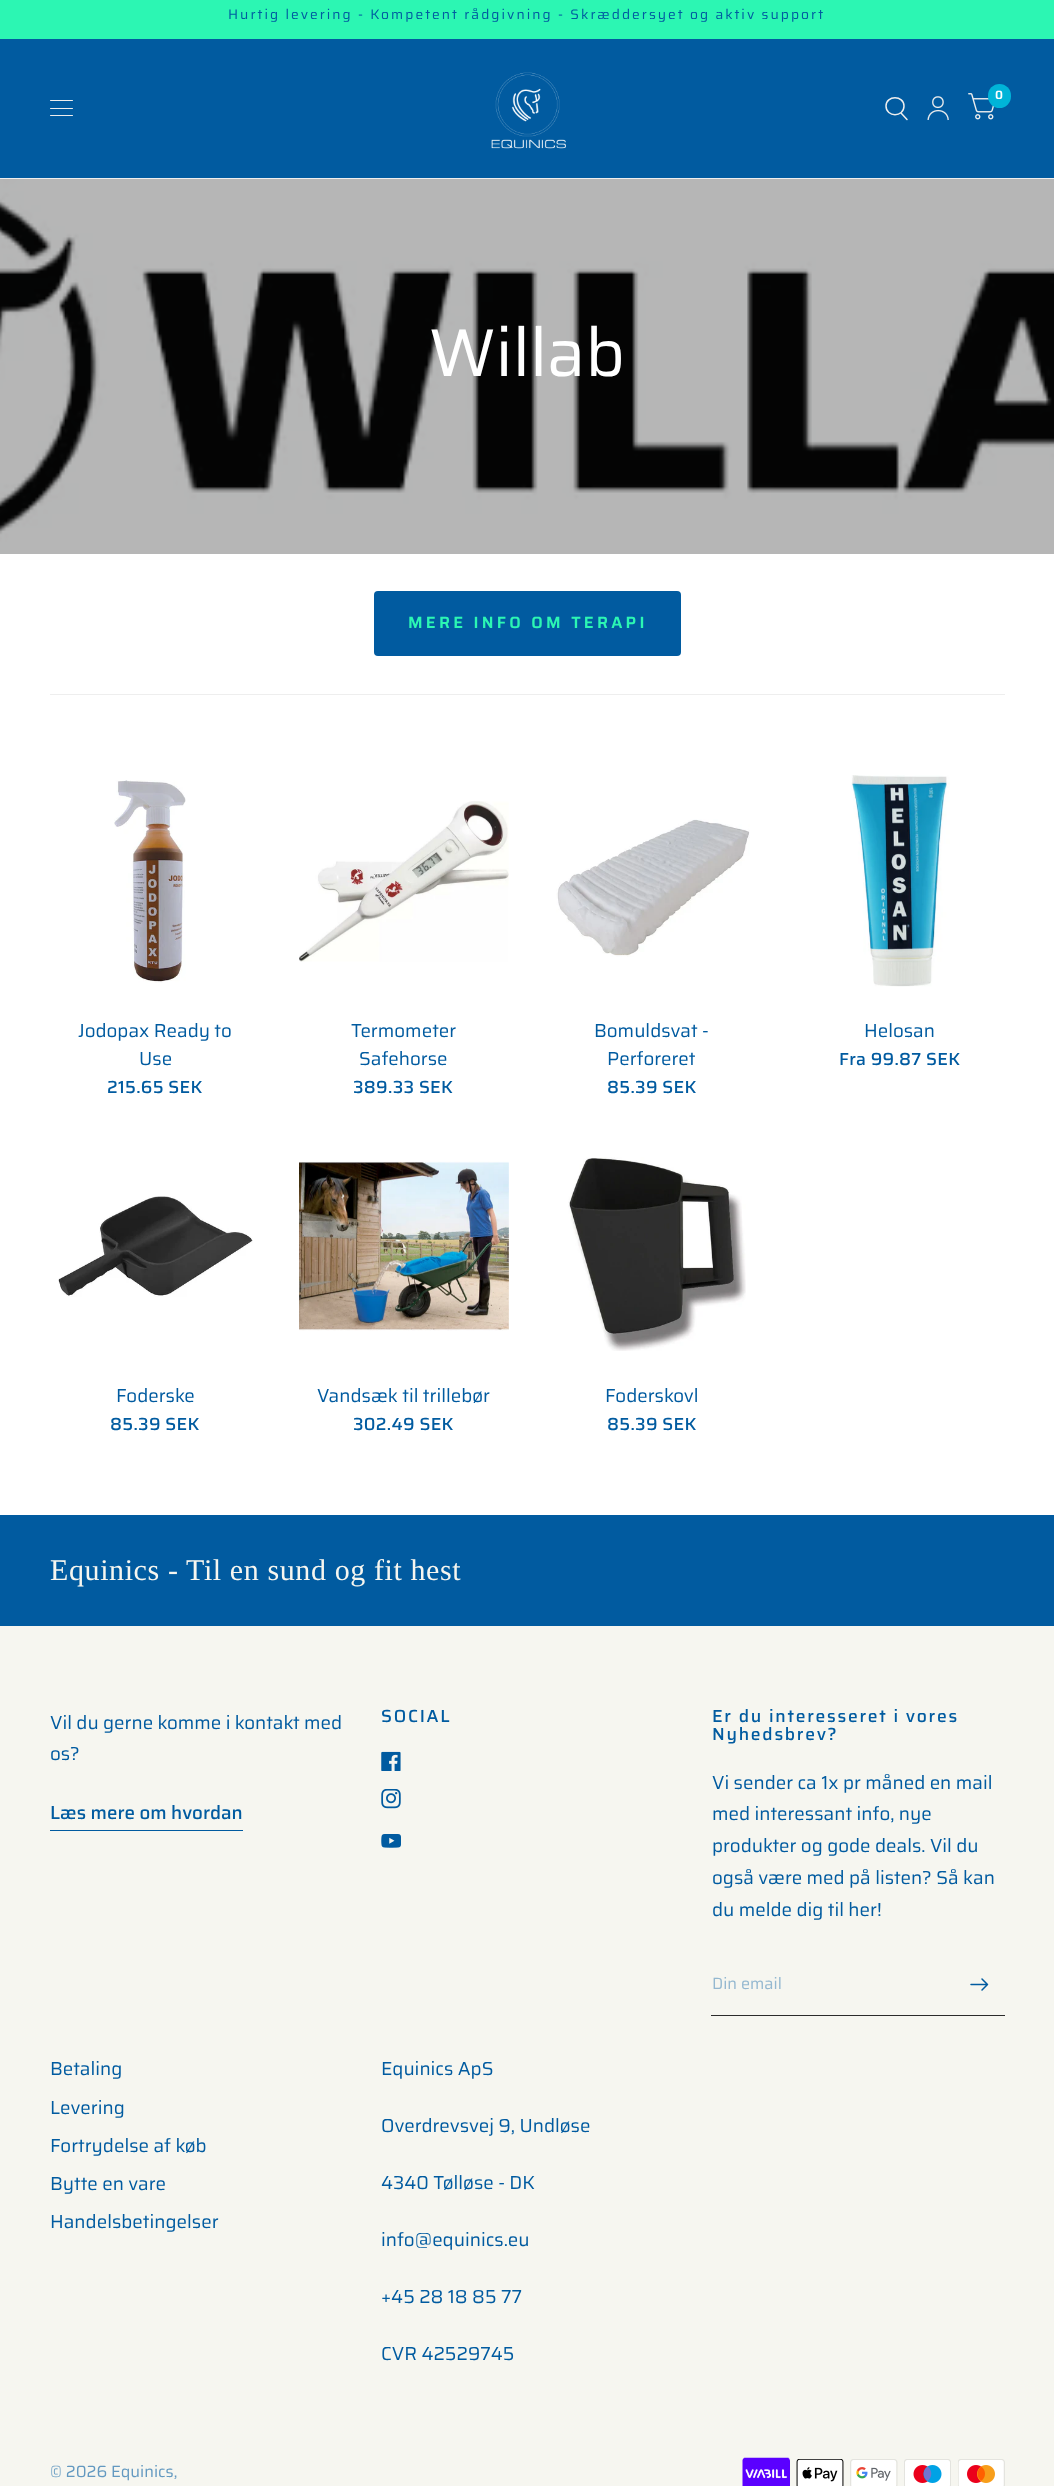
<svg xmlns="http://www.w3.org/2000/svg" width="1054" height="2486" viewBox="0 0 1054 2486">
  <rect width="100%" height="100%" fill="#fff"/>
  <path d="M0 0h1054v39H0z" fill="#2cf6b3"/>
  <path d="M0 39h1054v139H0z" fill="#015ba0"/>
  <path d="M0 178h1054v1H0z" fill="#eee"/>
  <image x="491" y="72" width="75" height="77" href="img/1.png"/>
  <image x="968" y="93" width="26" height="27" href="img/2.png"/>
  <rect x="988" y="84" width="23" height="24" rx="11.5" fill="#00b4d8"/>
  <path d="M901 113L907 119.5M904 106C904 117.5 886 117.5 886 106C886 95 904 95 904 106Z" fill="none" stroke="#eee" stroke-width="1.5" stroke-linecap="round" stroke-linejoin="round"/>
  <image x="927" y="96" width="22" height="25" href="img/3.png"/>
  <rect x="50" y="100" width="23" height="1" rx="0.5" fill="#eee"/>
  <rect x="50" y="108" width="23" height="1" rx="0.5" fill="#eee"/>
  <rect x="50" y="115" width="23" height="1" rx="0.5" fill="#eee"/>
  <image x="0" y="179" width="1054" height="375" href="img/4.png"/>
  <rect x="374" y="591" width="307" height="65" rx="4" fill="#015ba0"/>
  <path d="M50 694h955v1H50z" fill="#eee"/>
  <image x="114" y="780" width="72" height="203" href="img/5.png"/>
  <image x="299" y="801" width="210" height="161" href="img/6.png"/>
  <image x="556" y="819" width="194" height="138" href="img/7.png"/>
  <image x="851" y="775" width="99" height="212" href="img/8.png"/>
  <image x="58" y="1196" width="195" height="101" href="img/9.png"/>
  <image x="299" y="1161" width="210" height="170" href="img/10.png"/>
  <image x="568" y="1157" width="178" height="194" href="img/11.png"/>
  <path d="M0 1515h1054v111H0z" fill="#015ba0"/>
  <path d="M0 1626h1054v860H0z" fill="#f6f6f0"/>
  <path d="M50 1830h193v1H50z" fill="#015ba0"/>
  <image x="381" y="1751" width="20" height="20" href="img/12.png"/>
  <image x="381" y="1789" width="20" height="20" href="img/13.png"/>
  <image x="381" y="1834" width="20" height="14" href="img/14.png"/>
  <path d="M711 2015h294v1H711z" fill="#2b2b2b"/>
  <path d="M971 1984.5H986M982 1979L987.5 1984.5L982 1990" fill="none" stroke="#015ba0" stroke-width="1.5" stroke-linecap="round" stroke-linejoin="round"/>
  <image x="742" y="2457" width="48" height="29" href="img/15.png"/>
  <image x="796" y="2459" width="48" height="27" href="img/16.png"/>
  <image x="850" y="2459" width="48" height="27" href="img/17.png"/>
  <image x="904" y="2459" width="47" height="27" href="img/18.png"/>
  <image x="958" y="2459" width="47" height="27" href="img/19.png"/>
  <text x="228" y="19" font-family="Saira" font-size="13.75" letter-spacing="2.05" fill="#015ba0">Hurtig levering - Kompetent rådgivning - Skræddersyet og aktiv support</text>
  <text x="995" y="99" font-family="Saira" font-size="12" font-weight="600" fill="#fff">0</text>
  <text x="429" y="376" font-family="Saira" font-size="67.5" fill="#fff">Willab</text>
  <text x="408" y="628" font-family="Saira" font-size="16.25" font-weight="600" letter-spacing="3.25" fill="#2cf6b3">MERE INFO OM TERAPI</text>
  <g font-family="Saira" font-size="18.75" fill="#015ba0">
    <text x="78" y="1037">Jodopax Ready to</text>
    <text x="139" y="1065">Use</text>
  </g>
  <text x="107" y="1093" font-family="Saira" font-size="17.5" font-weight="500" letter-spacing="0.3" fill="#015ba0">215.65 SEK</text>
  <g font-family="Saira" font-size="18.75" fill="#015ba0">
    <text x="351" y="1037">Termometer</text>
    <text x="359" y="1065">Safehorse</text>
  </g>
  <text x="353" y="1093" font-family="Saira" font-size="17.5" font-weight="500" letter-spacing="0.3" fill="#015ba0">389.33 SEK</text>
  <g font-family="Saira" font-size="18.75" fill="#015ba0">
    <text x="594" y="1037">Bomuldsvat -</text>
    <text x="607" y="1065">Perforeret</text>
  </g>
  <text x="607" y="1093" font-family="Saira" font-size="17.5" font-weight="500" letter-spacing="0.3" fill="#015ba0">85.39 SEK</text>
  <text x="864" y="1037" font-family="Saira" font-size="18.75" fill="#015ba0">Helosan</text>
  <text x="839" y="1065" font-family="Saira" font-size="17.5" font-weight="500" letter-spacing="0.3" fill="#015ba0">Fra 99.87 SEK</text>
  <text x="116" y="1402" font-family="Saira" font-size="18.75" fill="#015ba0">Foderske</text>
  <text x="110" y="1430" font-family="Saira" font-size="17.5" font-weight="500" letter-spacing="0.3" fill="#015ba0">85.39 SEK</text>
  <text x="317" y="1402" font-family="Saira" font-size="18.75" fill="#015ba0">Vandsæk til trillebør</text>
  <text x="353" y="1430" font-family="Saira" font-size="17.5" font-weight="500" letter-spacing="0.3" fill="#015ba0">302.49 SEK</text>
  <text x="605" y="1402" font-family="Saira" font-size="18.75" fill="#015ba0">Foderskovl</text>
  <text x="607" y="1430" font-family="Saira" font-size="17.5" font-weight="500" letter-spacing="0.3" fill="#015ba0">85.39 SEK</text>
  <text x="50" y="1580" font-family="Liberation Serif" font-size="30" letter-spacing="0.6" fill="#f6f6f0">Equinics - Til en sund og fit hest</text>
  <g font-family="Saira" font-size="18.75" fill="#015ba0">
    <text x="50" y="1729">Vil du gerne komme i kontakt med</text>
    <text x="50" y="1760">os?</text>
  </g>
  <text x="50" y="1819" font-family="Saira" font-size="18.75" font-weight="500" fill="#015ba0">Læs mere om hvordan</text>
  <g font-family="Saira" font-size="17.5" font-weight="500" letter-spacing="1.75" fill="#015ba0">
    <text x="381" y="1722">SOCIAL</text>
    <text x="712" y="1722">Er du interesseret i vores</text>
    <text x="712" y="1740">Nyhedsbrev?</text>
  </g>
  <g font-family="Saira" font-size="18.75" fill="#015ba0">
    <text x="712" y="1789">Vi sender ca 1x pr måned en mail</text>
    <text x="712" y="1820">med interessant info, nye</text>
    <text x="712" y="1852">produkter og gode deals. Vil du</text>
    <text x="712" y="1884">også være med på listen? Så kan</text>
    <text x="712" y="1916">du melde dig til her!</text>
  </g>
  <text x="712" y="1989" font-family="Saira" font-size="16.25" fill="#94b8d0">Din email</text>
  <g font-family="Saira" font-size="18.75" fill="#015ba0">
    <text x="50" y="2075">Betaling</text>
    <text x="50" y="2114">Levering</text>
    <text x="50" y="2152">Fortrydelse af køb</text>
    <text x="50" y="2190">Bytte en vare</text>
    <text x="50" y="2228">Handelsbetingelser</text>
    <text x="381" y="2075">Equinics ApS</text>
    <text x="381" y="2132">Overdrevsvej 9, Undløse</text>
    <text x="381" y="2189">4340 Tølløse - DK</text>
    <text x="381" y="2246">info@equinics.eu</text>
    <text x="381" y="2303">+45 28 18 85 77</text>
    <text x="381" y="2360">CVR 42529745</text>
  </g>
  <text x="50" y="2477" font-family="Saira" font-size="16.25" fill="#6399c0">© 2026 Equinics,</text>
</svg>
